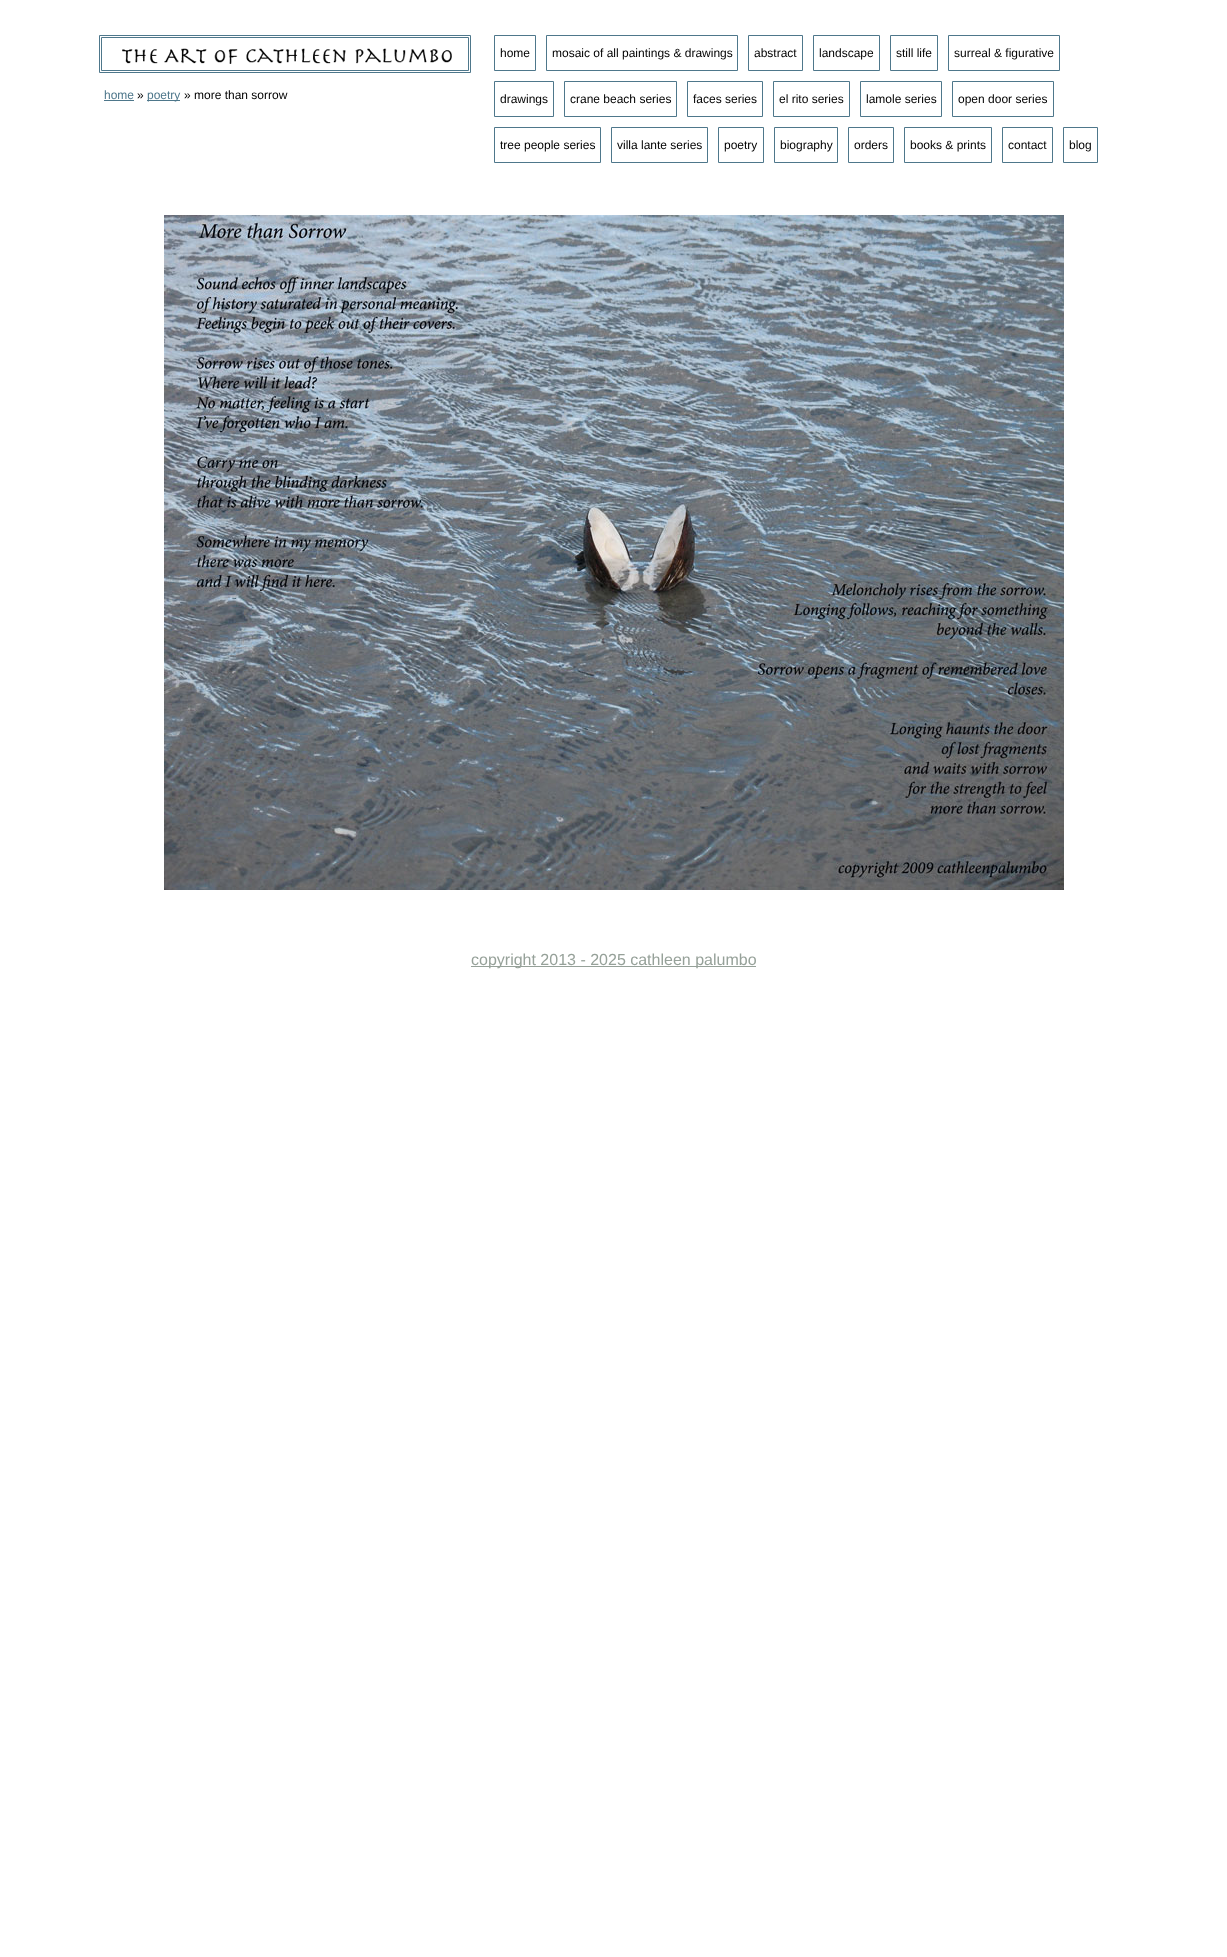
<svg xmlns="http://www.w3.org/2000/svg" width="1227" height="1957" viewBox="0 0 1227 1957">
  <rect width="100%" height="100%" fill="#fff"/>
  <path d="M99.5 35.5h371v37H99.5z" fill="none" stroke="#4e778b"/>
  <path d="M101.5 37.5h367v33H101.5z" fill="none" stroke="#4e778b"/>
  <image x="122" y="48" width="330" height="16" href="img/1.png"/>
  <path d="M104 100h30v1H104z" fill="#4e778b"/>
  <path d="M147 100h33v1H147z" fill="#4e778b"/>
  <path d="M494.5 35.5h41v35H494.5z" fill="none" stroke="#4e778b"/>
  <path d="M546.5 35.5h191v35H546.5z" fill="none" stroke="#4e778b"/>
  <path d="M748.5 35.5h54v35H748.5z" fill="none" stroke="#4e778b"/>
  <path d="M813.5 35.5h66v35H813.5z" fill="none" stroke="#4e778b"/>
  <path d="M890.5 35.5h47v35H890.5z" fill="none" stroke="#4e778b"/>
  <path d="M948.5 35.5h111v35H948.5z" fill="none" stroke="#4e778b"/>
  <path d="M494.5 81.5h59v35H494.5z" fill="none" stroke="#4e778b"/>
  <path d="M564.5 81.5h112v35H564.5z" fill="none" stroke="#4e778b"/>
  <path d="M687.5 81.5h75v35H687.5z" fill="none" stroke="#4e778b"/>
  <path d="M773.5 81.5h76v35H773.5z" fill="none" stroke="#4e778b"/>
  <path d="M860.5 81.5h81v35H860.5z" fill="none" stroke="#4e778b"/>
  <path d="M952.5 81.5h101v35H952.5z" fill="none" stroke="#4e778b"/>
  <path d="M494.5 127.5h106v35H494.5z" fill="none" stroke="#4e778b"/>
  <path d="M611.5 127.5h96v35H611.5z" fill="none" stroke="#4e778b"/>
  <path d="M718.5 127.5h45v35H718.5z" fill="none" stroke="#4e778b"/>
  <path d="M774.5 127.5h63v35H774.5z" fill="none" stroke="#4e778b"/>
  <path d="M848.5 127.5h45v35H848.5z" fill="none" stroke="#4e778b"/>
  <path d="M904.5 127.5h87v35H904.5z" fill="none" stroke="#4e778b"/>
  <path d="M1002.5 127.5h50v35H1002.5z" fill="none" stroke="#4e778b"/>
  <path d="M1063.5 127.5h34v35H1063.5z" fill="none" stroke="#4e778b"/>
  <image x="164" y="215" width="900" height="675" href="img/2.png"/>
  <path d="M471 966h285v1H471z" fill="#96a199"/>
  <text x="104" y="99" font-family="Liberation Sans" font-size="12" fill="#4e778b">home</text>
  <text x="137" y="99" font-family="Liberation Sans" font-size="12" fill="#000">»</text>
  <text x="147" y="99" font-family="Liberation Sans" font-size="12" fill="#4e778b">poetry</text>
  <g font-family="Liberation Sans" font-size="12" fill="#000">
    <text x="184" y="99">» more than sorrow</text>
    <text x="500" y="57">home</text>
    <text x="552" y="57">mosaic of all paintings &amp; drawings</text>
    <text x="754" y="57">abstract</text>
    <text x="819" y="57">landscape</text>
    <text x="896" y="57">still life</text>
    <text x="954" y="57">surreal &amp; figurative</text>
    <text x="500" y="103">drawings</text>
    <text x="570" y="103">crane beach series</text>
    <text x="693" y="103">faces series</text>
    <text x="779" y="103">el rito series</text>
    <text x="866" y="103">lamole series</text>
    <text x="958" y="103">open door series</text>
    <text x="500" y="149">tree people series</text>
    <text x="617" y="149">villa lante series</text>
    <text x="724" y="149">poetry</text>
    <text x="780" y="149">biography</text>
    <text x="854" y="149">orders</text>
    <text x="910" y="149">books &amp; prints</text>
    <text x="1008" y="149">contact</text>
    <text x="1069" y="149">blog</text>
  </g>
  <text x="471" y="965" font-family="Liberation Sans" font-size="16" fill="#96a199">copyright 2013 - 2025 cathleen palumbo</text>
</svg>
